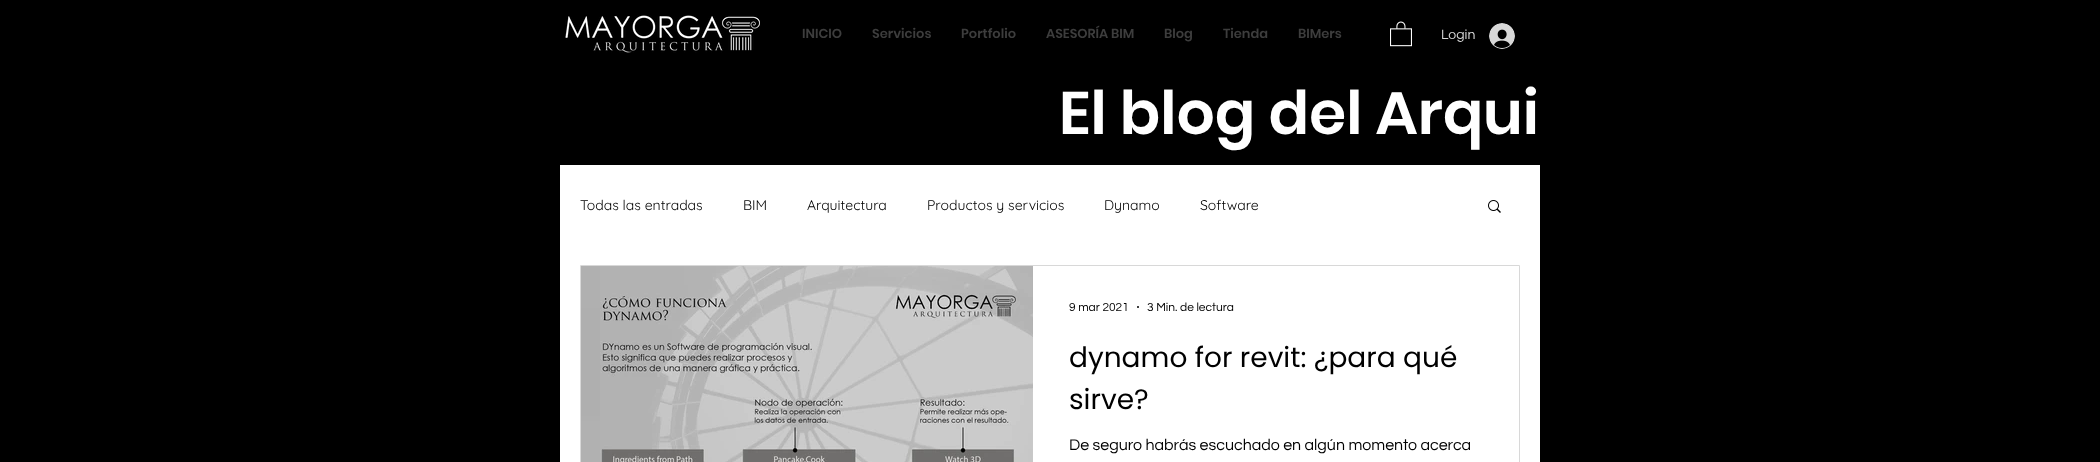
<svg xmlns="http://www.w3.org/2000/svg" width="2100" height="462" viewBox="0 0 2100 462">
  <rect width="100%" height="100%" fill="#000"/>
  <image x="565" y="15" width="195" height="38" href="img/1.png"/>
  <image x="1390" y="21" width="22" height="26" href="img/2.png"/>
  <image x="1489" y="23" width="26" height="26" href="img/3.png"/>
  <path d="M560 165h980v297H560z" fill="#fff"/>
  <image x="1488" y="200" width="13" height="13" href="img/4.png"/>
  <path d="M580.5 265.5h939v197H580.5z" fill="none" stroke="#d8d8d8"/>
  <image x="581" y="266" width="19" height="196" href="img/5.png"/>
  <image x="600" y="266" width="433" height="196" href="img/6.png"/>
  <circle cx="1138" cy="307" r="1" fill="#000"/>
  <g font-family="Poppins" font-size="13" font-weight="600" fill="#3d3d3d">
    <text x="802" y="38">INICIO</text>
    <text x="872" y="38">Servicios</text>
    <text x="961" y="38">Portfolio</text>
    <text x="1046" y="38">ASESORÍA BIM</text>
    <text x="1164" y="38">Blog</text>
    <text x="1223" y="38">Tienda</text>
    <text x="1298" y="38">BIMers</text>
  </g>
  <text x="1441" y="39" font-family="Questrial" font-size="14" fill="#d8d8d8">Login</text>
  <text x="1059" y="134" font-family="Poppins" font-size="60" font-weight="600" fill="#fff">El blog del Arqui</text>
  <g font-family="Quicksand" font-size="14" fill="#000">
    <text x="580" y="210">Todas las entradas</text>
    <text x="743" y="210">BIM</text>
    <text x="807" y="210">Arquitectura</text>
    <text x="927" y="210">Productos y servicios</text>
    <text x="1104" y="210">Dynamo</text>
    <text x="1200" y="210">Software</text>
  </g>
  <g font-family="Questrial" font-size="12" fill="#000">
    <text x="1069" y="311">9 mar 2021</text>
    <text x="1147" y="311">3 Min. de lectura</text>
  </g>
  <g font-family="Poppins" font-size="28" fill="#000">
    <text x="1069" y="367">dynamo for revit: ¿para qué</text>
    <text x="1069" y="409">sirve?</text>
  </g>
  <text x="1069" y="450" font-family="Questrial" font-size="16" fill="#000">De seguro habrás escuchado en algún momento acerca</text>
</svg>
